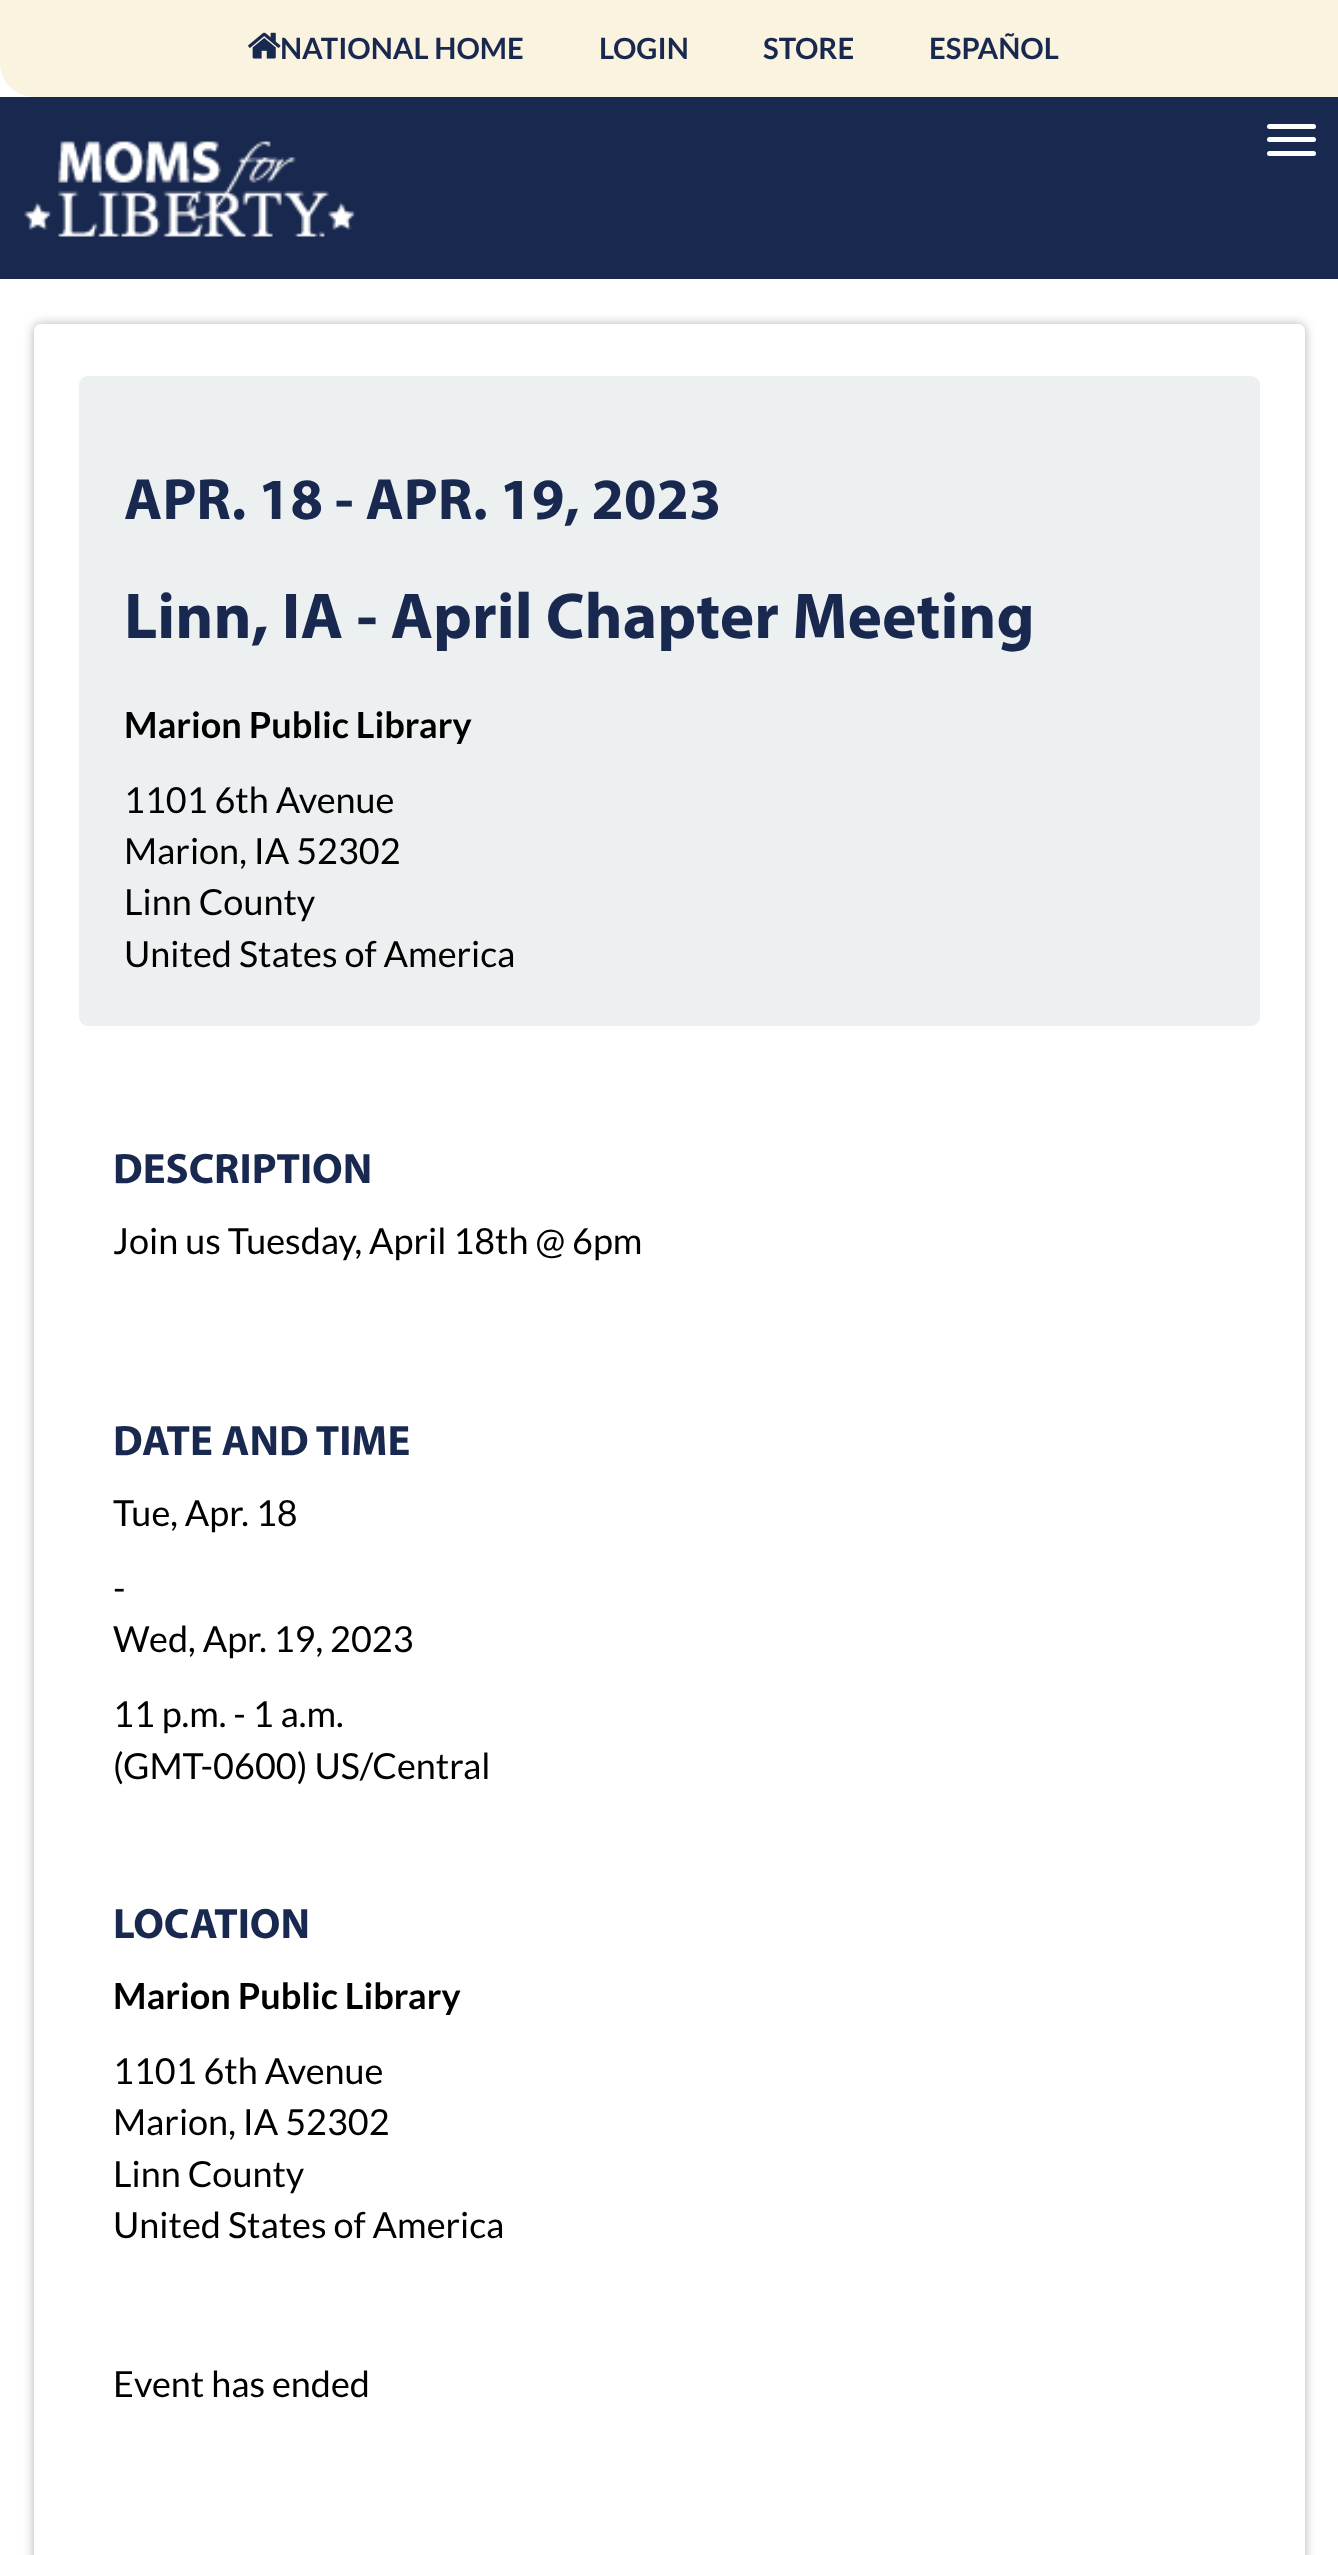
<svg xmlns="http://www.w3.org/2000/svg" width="1338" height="2555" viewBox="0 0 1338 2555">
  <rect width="100%" height="100%" fill="#fff"/>
  <path d="M0 0H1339V97H34C15 97 0 82 0 63Z" fill="#f9f3e0"/>
  <image x="248" y="32" width="33" height="27" href="img/1.png"/>
  <path d="M0 97h1338v182H0z" fill="#18284f"/>
  <image x="24" y="141" width="332" height="96" href="img/2.png"/>
  <rect x="1267" y="124" width="49" height="5" rx="2.5" fill="#fff"/>
  <rect x="1267" y="137" width="49" height="5" rx="2.5" fill="#fff"/>
  <rect x="1267" y="151" width="49" height="5" rx="2.5" fill="#fff"/>
  <rect x="34" y="324" width="1271" height="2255" rx="7" fill="#0000004d" filter="blur(5.5px)"/>
  <rect x="34" y="324" width="1271" height="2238" rx="7" fill="#fff"/>
  <rect x="79" y="376" width="1181" height="650" rx="9" fill="#ecf0f1"/>
  <g font-family="Lato" font-size="29.25" font-weight="bold" fill="#18284f">
    <text x="280" y="59">NATIONAL HOME</text>
    <text x="599" y="59">LOGIN</text>
    <text x="763" y="59">STORE</text>
    <text x="929" y="59">ESPAÑOL</text>
  </g>
  <text x="124" y="519" font-family="Myriad" font-size="58.5" font-weight="bold" fill="#18284f">APR. 18 - APR. 19, 2023</text>
  <text x="124" y="638" font-family="Myriad" font-size="65.25" font-weight="bold" fill="#18284f">Linn, IA - April Chapter Meeting</text>
  <text x="124" y="738" font-family="Lato" font-size="36" font-weight="bold" fill="#000">Marion Public Library</text>
  <g font-family="Lato" font-size="36" fill="#000">
    <text x="124" y="813">1101 6th Avenue</text>
    <text x="124" y="864">Marion, IA 52302</text>
    <text x="124" y="915">Linn County</text>
    <text x="124" y="967">United States of America</text>
  </g>
  <text x="113" y="1183" font-family="Myriad" font-size="42.75" font-weight="bold" fill="#18284f">DESCRIPTION</text>
  <text x="113" y="1254" font-family="Lato" font-size="36" fill="#000">Join us Tuesday, April 18th @ 6pm</text>
  <text x="113" y="1455" font-family="Myriad" font-size="42.75" font-weight="bold" fill="#18284f">DATE AND TIME</text>
  <g font-family="Lato" font-size="36" fill="#000">
    <text x="113" y="1526">Tue, Apr. 18</text>
    <text x="113" y="1601">-</text>
    <text x="113" y="1652">Wed, Apr. 19, 2023</text>
    <text x="113" y="1727">11 p.m. - 1 a.m.</text>
    <text x="113" y="1779">(GMT-0600) US/Central</text>
  </g>
  <text x="113" y="1938" font-family="Myriad" font-size="42.75" font-weight="bold" fill="#18284f">LOCATION</text>
  <text x="113" y="2009" font-family="Lato" font-size="36" font-weight="bold" fill="#000">Marion Public Library</text>
  <g font-family="Lato" font-size="36" fill="#000">
    <text x="113" y="2084">1101 6th Avenue</text>
    <text x="113" y="2135">Marion, IA 52302</text>
    <text x="113" y="2187">Linn County</text>
    <text x="113" y="2238">United States of America</text>
    <text x="113" y="2397">Event has ended</text>
  </g>
</svg>
